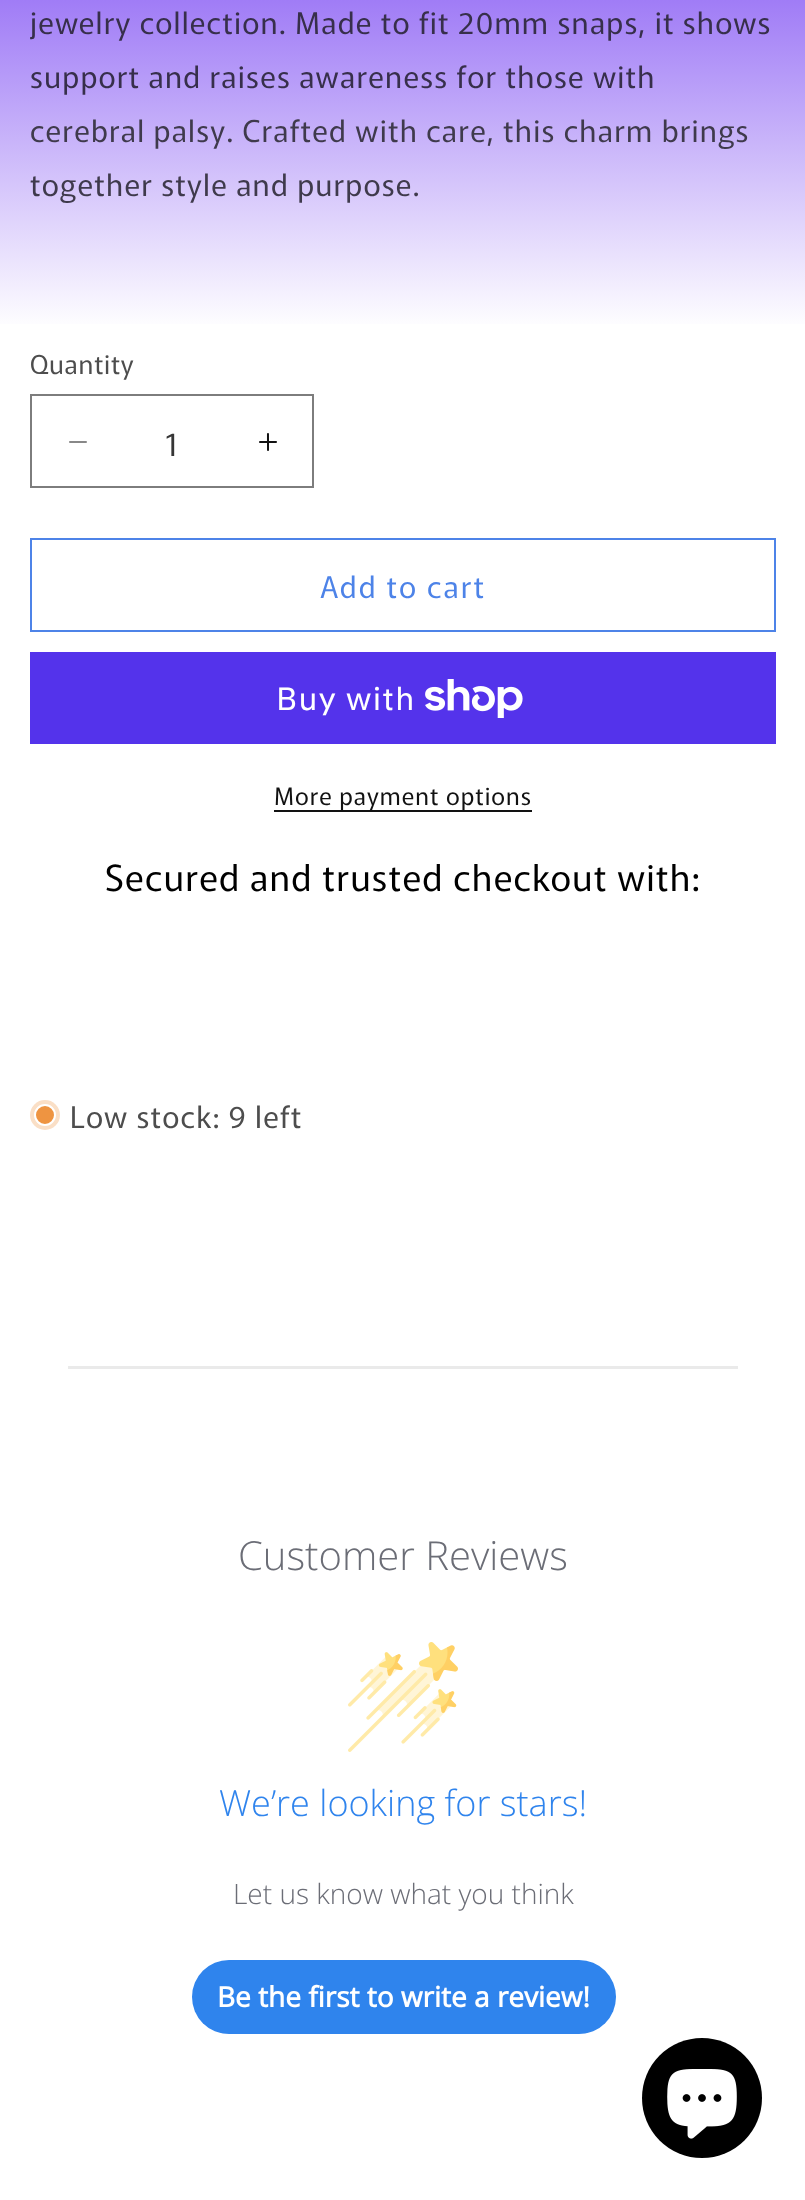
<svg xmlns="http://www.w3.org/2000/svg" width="805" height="2200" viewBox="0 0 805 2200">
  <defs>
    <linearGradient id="g1" gradientUnits="userSpaceOnUse" x1="403" y1="2200" x2="403" y2="0"><stop offset="0.85" stop-color="#fff"/><stop offset="1" stop-color="#a07cf6"/></linearGradient>
  </defs>
  <rect width="100%" height="100%" fill="#fff"/>
  <path d="M0 0h805v324H0z" fill="url(#g1)"/>
  <image x="69" y="441" width="18" height="2" href="img/1.png"/>
  <image x="259" y="433" width="18" height="18" href="img/2.png"/>
  <path d="M31 395h282v92H31z" fill="none" stroke="#7d7d7d" stroke-width="2"/>
  <path d="M31 539h744v92H31z" fill="none" stroke="#4d83e8" stroke-width="2"/>
  <path d="M30 652h746v92H30z" fill="#5433eb"/>
  <image x="425" y="679" width="98" height="39" href="img/3.png"/>
  <path d="M274 810h258v2H274z" fill="#121212"/>
  <circle cx="45" cy="1115" r="15" fill="#fadfc6"/>
  <circle cx="45" cy="1115" r="10" fill="#ee9441" stroke="#fff" stroke-width="2"/>
  <path d="M68 1366h670v3H68z" fill="#eaeaea"/>
  <image x="348" y="1642" width="110" height="110" href="img/4.png"/>
  <rect x="192" y="1960" width="424" height="74" rx="37" fill="#2f84ed"/>
  <circle cx="702" cy="2098" r="60" fill="#000"/>
  <image x="667" y="2069" width="70" height="70" href="img/5.png"/>
  <g font-family="Murecho" font-size="30" letter-spacing="1.2" fill="#372f4b">
    <text x="30" y="34">jewelry collection. Made to fit 20mm snaps, it shows</text>
    <text x="30" y="88">support and raises awareness for those with</text>
  </g>
  <g font-family="Murecho" font-size="30" letter-spacing="1.2" fill="#3f3a4c">
    <text x="30" y="142">cerebral palsy. Crafted with care, this charm brings</text>
    <text x="30" y="196">together style and purpose.</text>
  </g>
  <text x="30" y="374" font-family="Murecho" font-size="26" letter-spacing="0.75" fill="#4d4d4d">Quantity</text>
  <text x="164" y="456" font-family="Murecho" font-size="32" fill="#363636">1</text>
  <text x="320" y="598" font-family="Murecho" font-size="30" letter-spacing="2" fill="#4d83e8">Add to cart</text>
  <text x="276" y="710" font-family="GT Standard" font-size="32" letter-spacing="1.2" fill="#fff">Buy with</text>
  <text x="274" y="805" font-family="Murecho" font-size="24" letter-spacing="1" fill="#121212">More payment options</text>
  <text x="105" y="891" font-family="Murecho" font-size="36" letter-spacing="1.2" fill="#000">Secured and trusted checkout with:</text>
  <text x="70" y="1128" font-family="Murecho" font-size="30" letter-spacing="1.2" fill="#4d4d4d">Low stock: 9 left</text>
  <text x="238" y="1570" font-family="Open Sans" font-size="40" font-weight="300" fill="#6b6d76">Customer Reviews</text>
  <text x="219" y="1816" font-family="Open Sans" font-size="36" font-weight="300" fill="#2f84ed">We’re looking for stars!</text>
  <text x="233" y="1904" font-family="Open Sans" font-size="28" font-weight="300" fill="#6b6d76">Let us know what you think</text>
  <text x="217" y="2007" font-family="Open Sans" font-size="28" font-weight="bold" fill="#fff">Be the first to write a review!</text>
</svg>
